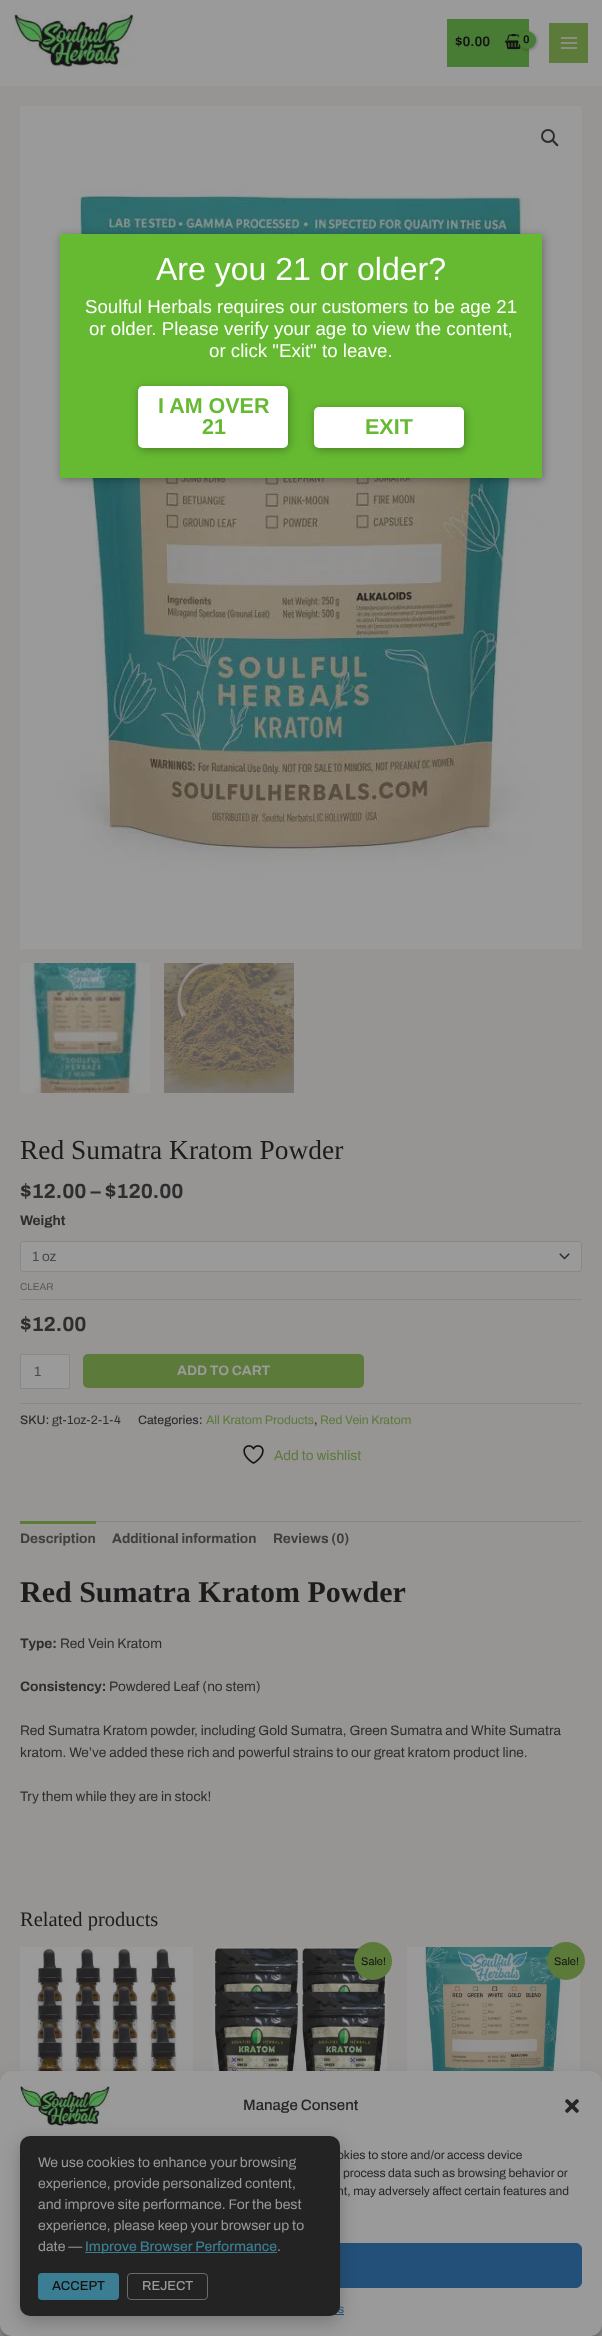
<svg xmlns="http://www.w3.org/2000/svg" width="602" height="2336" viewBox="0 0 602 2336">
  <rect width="100%" height="100%" fill="#969594"/>
  <path d="M0 0h602v86H0z" fill="#9a9a9a"/>
  <image x="14" y="14" width="120" height="53" href="img/1.png"/>
  <path d="M447 19h82v48H447z" fill="#487b33"/>
  <image x="505" y="34" width="16" height="16" href="img/2.png"/>
  <rect x="519" y="32" width="18" height="18" rx="9" fill="#1313134d" filter="blur(1.5px)"/>
  <circle cx="527" cy="40" r="9" fill="#487b33"/>
  <path d="M549 23h39v40H549z" fill="#5c7a3a"/>
  <image x="560" y="37" width="18" height="12" href="img/3.png"/>
  <image x="20" y="106" width="562" height="843" href="img/4.png"/>
  <circle cx="548" cy="136" r="6" fill="none" stroke="#2e2e2e" stroke-width="2"/>
  <path d="M552.5 140.5C553.5 139 555.5 142 556 142.5C556.5 143 559.5 145 558 146C557 147 555 144.5 554.5 144C554 143 551.5 141.5 552.5 140.5Z" fill="#2e2e2e"/>
  <image x="20" y="963" width="130" height="130" href="img/5.png"/>
  <image x="164" y="963" width="130" height="130" href="img/6.png"/>
  <path d="M20 1299h562v1H20z" fill="#888"/>
  <rect x="20" y="1241" width="562" height="31" rx="3" fill="#9a9a9a"/>
  <image x="559" y="1253" width="11" height="7" href="img/7.png"/>
  <rect x="20.5" y="1241.5" width="561" height="30" rx="2.5" fill="none" stroke="#888"/>
  <path d="M20.5 1354.5h49v34H20.5z" fill="#9a9a9a" stroke="#888"/>
  <rect x="83" y="1354" width="281" height="34" rx="5" fill="#5c7a3a"/>
  <path d="M20 1403h562v1H20z" fill="#888"/>
  <image x="243" y="1445" width="21" height="19" href="img/8.png"/>
  <path d="M96 1521h486v1H96z" fill="#888"/>
  <path d="M20 1521h76v3H20z" fill="#5c7a3a"/>
  <image x="20" y="1947" width="173" height="124" href="img/9.png"/>
  <image x="213" y="1947" width="174" height="124" href="img/10.png"/>
  <circle cx="373" cy="1961" r="19" fill="#5c7a3a"/>
  <image x="407" y="1947" width="173" height="124" href="img/11.png"/>
  <circle cx="566" cy="1961" r="19" fill="#5c7a3a"/>
  <path d="M61 236h482v244H61z" fill="#0000004d" filter="blur(4.5px)"/>
  <path d="M60 234h482v244H60z" fill="#66ba32"/>
  <rect x="139" y="388" width="150" height="62" rx="5" fill="#0000004d" filter="blur(4.5px)"/>
  <rect x="138" y="386" width="150" height="62" rx="5" fill="#fff"/>
  <rect x="315" y="409" width="150" height="41" rx="5" fill="#0000004d" filter="blur(4.5px)"/>
  <rect x="314" y="407" width="150" height="41" rx="5" fill="#fff"/>
  <rect y="2077" width="602" height="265" rx="12" fill="#1313133b" filter="blur(3px)"/>
  <rect y="2081" width="602" height="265" rx="12" fill="#13131330" filter="blur(10px)"/>
  <rect y="2071" width="602" height="265" rx="12" fill="#9a9a9a"/>
  <image x="20" y="2086" width="90" height="40" href="img/12.png"/>
  <rect x="20.5" y="2243.5" width="561" height="44" rx="5.5" fill="#235078" stroke="#235078"/>
  <path d="M334 2314h10v1H334z" fill="#235078"/>
  <rect x="20" y="2142" width="320" height="180" rx="10" fill="#13131340" filter="blur(9px)"/>
  <image x="565" y="2099" width="14" height="14" href="img/13.png"/>
  <text x="455" y="46" font-family="'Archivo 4'" font-size="13.7" font-weight="600" fill="#131313">$0.00</text>
  <text x="523" y="43" font-family="'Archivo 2'" font-size="11" font-weight="600" fill="#131313">0</text>
  <text x="20" y="1159" font-family="Liberation Serif" font-size="27.4" fill="#1c1c1c">Red Sumatra Kratom Powder</text>
  <text x="20" y="1198" font-family="'Archivo 2'" font-size="20.5" font-weight="600" fill="#2e2e2e">$12.00 – $120.00</text>
  <text x="20" y="1225" font-family="'Archivo 2'" font-size="13.7" font-weight="600" fill="#2e2e2e">Weight</text>
  <text x="32" y="1261" font-family="Archivo" font-size="13.7" font-weight="600" fill="#494949">1 oz</text>
  <text x="20" y="1290" font-family="Archivo" font-size="10" font-weight="600" fill="#585757">CLEAR</text>
  <text x="20" y="1331" font-family="'Archivo 2'" font-size="20.5" font-weight="600" fill="#2e2e2e">$12.00</text>
  <text x="34" y="1376" font-family="Archivo" font-size="13.7" font-weight="600" fill="#494949">1</text>
  <text x="177" y="1375" font-family="'Archivo 2'" font-size="13.7" font-weight="600" fill="#9a9a9a">ADD TO CART</text>
  <text x="20" y="1424" font-family="'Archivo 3'" font-size="12.25" font-weight="600" fill="#2e2e2e">SKU:</text>
  <text x="52" y="1424" font-family="Archivo" font-size="12.25" font-weight="600" fill="#2e2e2e">gt-1oz-2-1-4</text>
  <text x="138" y="1424" font-family="'Archivo 3'" font-size="12.25" font-weight="600" fill="#2e2e2e">Categories:</text>
  <text x="206" y="1424" font-family="Archivo" font-size="12.25" font-weight="600" fill="#5c7a3a">All Kratom Products</text>
  <text x="314" y="1424" font-family="'Archivo 3'" font-size="12.25" font-weight="600" fill="#2e2e2e">,</text>
  <text x="320" y="1424" font-family="Archivo" font-size="12.25" font-weight="600" fill="#5c7a3a">Red Vein Kratom</text>
  <text x="274" y="1460" font-family="Archivo" font-size="13.7" font-weight="600" fill="#5c7a3a">Add to wishlist</text>
  <g font-family="'Archivo 2'" font-size="13.7" font-weight="600" fill="#3e3e3e">
    <text x="20" y="1543">Description</text>
    <text x="112" y="1543">Additional information</text>
    <text x="273" y="1543">Reviews (0)</text>
  </g>
  <text x="20" y="1602" font-family="Liberation Serif" font-size="30" font-weight="bold" fill="#1c1c1c">Red Sumatra Kratom Powder</text>
  <text x="20" y="1648" font-family="'Archivo 2'" font-size="13.7" font-weight="600" fill="#2e2e2e">Type:</text>
  <text x="60" y="1648" font-family="Archivo" font-size="13.7" font-weight="600" fill="#2e2e2e">Red Vein Kratom</text>
  <text x="20" y="1691" font-family="'Archivo 2'" font-size="13.7" font-weight="600" fill="#2e2e2e">Consistency:</text>
  <g font-family="Archivo" font-size="13.7" font-weight="600" fill="#2e2e2e">
    <text x="109" y="1691">Powdered Leaf (no stem)</text>
    <text x="20" y="1735">Red Sumatra Kratom powder, including Gold Sumatra, Green Sumatra and White Sumatra</text>
    <text x="20" y="1757">kratom. We’ve added these rich and powerful strains to our great kratom product line.</text>
    <text x="20" y="1801">Try them while they are in stock!</text>
  </g>
  <text x="20" y="1926" font-family="Liberation Serif" font-size="20.5" fill="#1c1c1c">Related products</text>
  <g font-family="Archivo" font-size="11" font-weight="600" fill="#131313">
    <text x="361" y="1965">Sale!</text>
    <text x="554" y="1965">Sale!</text>
  </g>
  <text x="156" y="280" font-family="Liberation Sans" font-size="32" fill="#fff">Are you 21 or older?</text>
  <g font-family="Liberation Sans" font-size="18.7" fill="#fff">
    <text x="85" y="313">Soulful Herbals requires our customers to be age 21</text>
    <text x="89" y="335">or older. Please verify your age to view the content,</text>
    <text x="209" y="357">or click "Exit" to leave.</text>
  </g>
  <g font-family="Liberation Sans" font-size="21.5" font-weight="bold" fill="#66ba32">
    <text x="158" y="413">I AM OVER</text>
    <text x="202" y="434">21</text>
    <text x="365" y="434">EXIT</text>
  </g>
  <text x="243" y="2110" font-family="'Archivo 3'" font-size="15" font-weight="600" fill="#252525">Manage Consent</text>
  <g font-family="Archivo" font-size="12" font-weight="600" fill="#252525">
    <text x="337" y="2159">okies to store and/or access device</text>
    <text x="343" y="2177">process data such as browsing behavior or</text>
    <text x="337" y="2195">nt, may adversely affect certain features and</text>
  </g>
  <text x="338" y="2313" font-family="Archivo" font-size="12" font-weight="600" fill="#235078">s</text>
  <rect x="20" y="2136" width="320" height="180" rx="10" fill="#232323"/>
  <rect x="127.5" y="2273.5" width="80" height="26" rx="3.5" fill="none" stroke="#6a6a6a"/>
  <text x="142" y="2290" font-family="'Archivo 3'" font-size="13" font-weight="600" fill="#9a9a9a">REJECT</text>
  <rect x="38" y="2273" width="81" height="27" rx="4" fill="#3b7d92"/>
  <text x="52" y="2290" font-family="'Archivo 3'" font-size="13" font-weight="600" fill="#131313">ACCEPT</text>
  <text x="277" y="2251" font-family="Archivo" font-size="14" font-weight="600" fill="#9a9a9a">.</text>
  <path d="M85 2252h192v1H85z" fill="#3b7d92"/>
  <text x="85" y="2251" font-family="'Archivo 3'" font-size="14" font-weight="600" fill="#3b7d92">Improve Browser Performance</text>
  <g font-family="Archivo" font-size="14" font-weight="600" fill="#9a9a9a">
    <text x="38" y="2251">date —</text>
    <text x="38" y="2230">experience, please keep your browser up to</text>
    <text x="38" y="2209">and improve site performance. For the best</text>
    <text x="38" y="2188">experience, provide personalized content,</text>
    <text x="38" y="2167">We use cookies to enhance your browsing</text>
  </g>
</svg>
